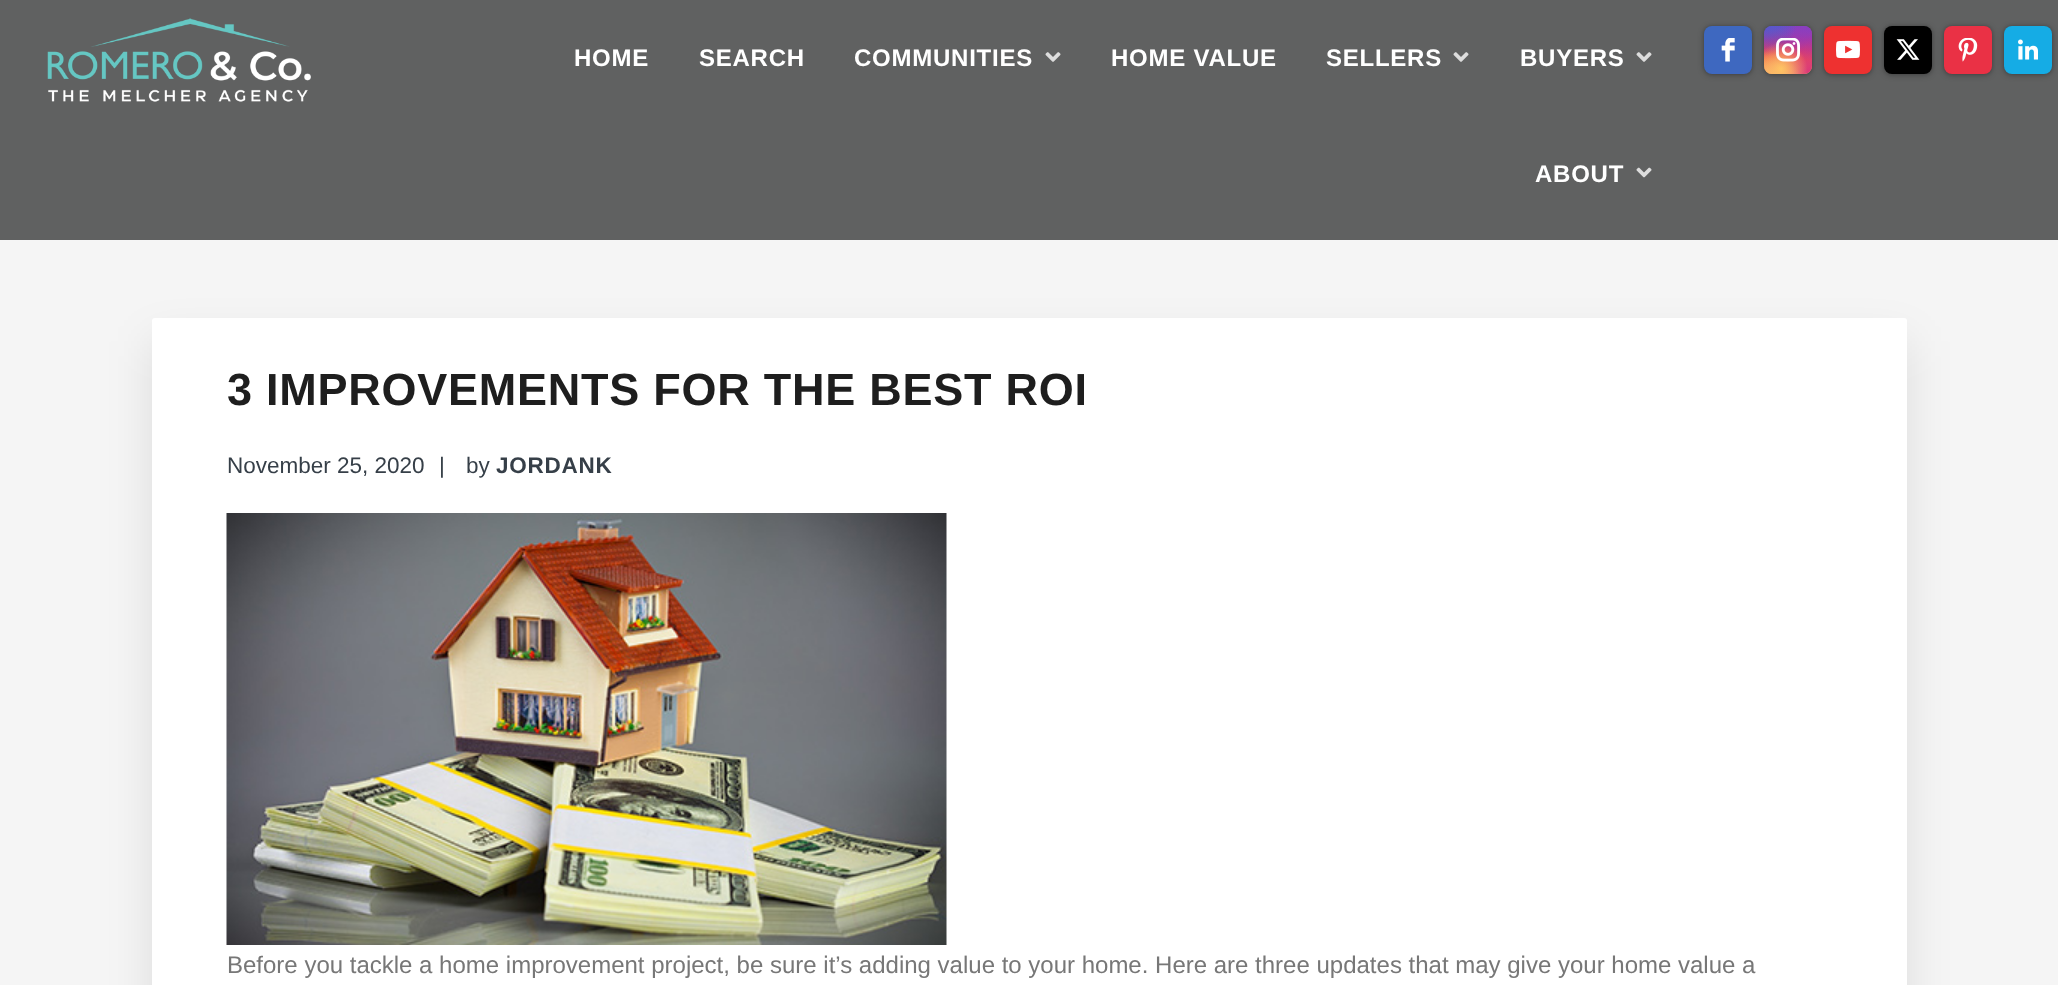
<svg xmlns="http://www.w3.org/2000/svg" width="2058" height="985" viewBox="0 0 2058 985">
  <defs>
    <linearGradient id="g1" gradientUnits="userSpaceOnUse" x1="1788" y1="25" x2="1788" y2="74"><stop offset="0" stop-color="#6559ca"/><stop offset="0.3" stop-color="#bc318f"/><stop offset="0.5" stop-color="#e33f5f"/><stop offset="0.7" stop-color="#f77638"/><stop offset="1" stop-color="#fec66d"/></linearGradient>
    <radialGradient id="g2" gradientUnits="userSpaceOnUse" cx="1812" cy="74" r="68"><stop offset="0" stop-color="#d9317a"/><stop offset="1" stop-color="#d9317a" stop-opacity="0"/></radialGradient>
    <radialGradient id="g3" gradientUnits="userSpaceOnUse" cx="0" cy="0" r="1" gradientTransform="matrix(41 0 0 81 1793 16)"><stop offset="0" stop-color="#893dc2"/><stop offset="0.5" stop-color="#893dc2" stop-opacity="0"/></radialGradient>
    <radialGradient id="g4" gradientUnits="userSpaceOnUse" cx="1812" cy="26" r="68"><stop offset="0" stop-color="#893dc2"/><stop offset="0.5" stop-color="#893dc2" stop-opacity="0"/></radialGradient>
    <radialGradient id="g5" gradientUnits="userSpaceOnUse" cx="0" cy="0" r="1" gradientTransform="matrix(54 0 0 102 1774 1.5)"><stop offset="0" stop-color="#5258cf"/><stop offset="0.5" stop-color="#5258cf" stop-opacity="0"/></radialGradient>
    <radialGradient id="g6" gradientUnits="userSpaceOnUse" cx="0" cy="0" r="1" gradientTransform="matrix(68 0 0 85 1764 14)"><stop offset="0" stop-color="#5258cf"/><stop offset="0.5" stop-color="#5258cf" stop-opacity="0"/></radialGradient>
    <radialGradient id="g7" gradientUnits="userSpaceOnUse" cx="1764" cy="93" r="83"><stop offset="0" stop-color="#fec564"/><stop offset="0.5" stop-color="#fec564" stop-opacity="0"/></radialGradient>
    <radialGradient id="g8" gradientUnits="userSpaceOnUse" cx="1781" cy="69" r="53"><stop offset="0" stop-color="#fec564"/><stop offset="0.5" stop-color="#fec564" stop-opacity="0"/></radialGradient>
  </defs>
  <rect width="100%" height="100%" fill="#f5f5f5"/>
  <path d="M0 0h2058v240H0z" fill="#606161"/>
  <image x="47" y="18" width="264" height="84" href="img/1.png"/>
  <image x="1045" y="52" width="16" height="10" href="img/2.png"/>
  <image x="1453" y="52" width="16" height="10" href="img/2.png"/>
  <image x="1636" y="52" width="16" height="10" href="img/2.png"/>
  <image x="1636" y="167" width="16" height="11" href="img/3.png"/>
  <rect x="1704" y="27" width="48" height="48" rx="8" fill="#00000047" filter="blur(3px)"/>
  <rect x="1704" y="26" width="48" height="48" rx="8" fill="#00000024" filter="blur(1.5px)"/>
  <rect x="1704" y="26" width="48" height="48" rx="8" fill="#3e68c0"/>
  <image x="1721" y="38" width="14" height="24" href="img/4.png"/>
  <rect x="1764" y="27" width="48" height="48" rx="8" fill="#00000047" filter="blur(3px)"/>
  <rect x="1764" y="26" width="48" height="48" rx="8" fill="#00000024" filter="blur(1.5px)"/>
  <rect x="1764" y="26" width="48" height="48" rx="8" fill="url(#g1)"/>
  <rect x="1764" y="26" width="48" height="48" rx="8" fill="url(#g2)"/>
  <rect x="1764" y="26" width="48" height="48" rx="8" fill="url(#g3)"/>
  <rect x="1764" y="26" width="48" height="48" rx="8" fill="url(#g4)"/>
  <rect x="1764" y="26" width="48" height="48" rx="8" fill="url(#g5)"/>
  <rect x="1764" y="26" width="48" height="48" rx="8" fill="url(#g6)"/>
  <rect x="1764" y="26" width="48" height="48" rx="8" fill="url(#g7)"/>
  <rect x="1764" y="26" width="48" height="48" rx="8" fill="url(#g8)"/>
  <image x="1776" y="38" width="24" height="24" href="img/5.png"/>
  <rect x="1824" y="27" width="48" height="48" rx="8" fill="#00000047" filter="blur(3px)"/>
  <rect x="1824" y="26" width="48" height="48" rx="8" fill="#00000024" filter="blur(1.5px)"/>
  <rect x="1824" y="26" width="48" height="48" rx="8" fill="#ee3130"/>
  <image x="1836" y="40" width="24" height="19" href="img/6.png"/>
  <rect x="1884" y="27" width="48" height="48" rx="8" fill="#00000047" filter="blur(3px)"/>
  <rect x="1884" y="26" width="48" height="48" rx="8" fill="#00000024" filter="blur(1.5px)"/>
  <rect x="1884" y="26" width="48" height="48" rx="8" fill="#000"/>
  <image x="1896" y="39" width="24" height="21" href="img/7.png"/>
  <rect x="1944" y="27" width="48" height="48" rx="8" fill="#00000047" filter="blur(3px)"/>
  <rect x="1944" y="26" width="48" height="48" rx="8" fill="#00000024" filter="blur(1.5px)"/>
  <rect x="1944" y="26" width="48" height="48" rx="8" fill="#ea3145"/>
  <image x="1958" y="38" width="20" height="24" href="img/8.png"/>
  <rect x="2004" y="27" width="48" height="48" rx="8" fill="#00000047" filter="blur(3px)"/>
  <rect x="2004" y="26" width="48" height="48" rx="8" fill="#00000024" filter="blur(1.5px)"/>
  <rect x="2004" y="26" width="48" height="48" rx="8" fill="#15ace5"/>
  <image x="2018" y="39" width="20" height="21" href="img/9.png"/>
  <rect x="152" y="341" width="1755" height="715" rx="3" fill="#0000001a" filter="blur(22.5px)"/>
  <rect x="152" y="318" width="1755" height="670" rx="3" fill="#fff"/>
  <image x="226" y="513" width="721" height="432" href="img/10.png"/>
  <g font-family="Liberation Sans" font-size="24" font-weight="bold" letter-spacing="0.75" fill="#fff">
    <text x="574" y="66">HOME</text>
    <text x="699" y="66">SEARCH</text>
    <text x="854" y="66">COMMUNITIES</text>
    <text x="1111" y="66">HOME VALUE</text>
    <text x="1326" y="66">SELLERS</text>
    <text x="1520" y="66">BUYERS</text>
    <text x="1535" y="182">ABOUT</text>
  </g>
  <text x="227" y="405" font-family="Liberation Sans" font-size="45" font-weight="bold" letter-spacing="0.75" fill="#1e1e1e">3 IMPROVEMENTS FOR THE BEST ROI</text>
  <g font-family="Liberation Sans" font-size="22.5" fill="#363f48">
    <text x="227" y="473">November 25, 2020</text>
    <text x="439" y="473">|</text>
    <text x="466" y="473">by</text>
  </g>
  <text x="496" y="473" font-family="Liberation Sans" font-size="22.5" font-weight="bold" letter-spacing="0.75" fill="#363f48">JORDANK</text>
  <text x="227" y="973" font-family="Liberation Sans" font-size="24" fill="#777">Before you tackle a home improvement project, be sure it’s adding value to your home. Here are three updates that may give your home value a</text>
</svg>
